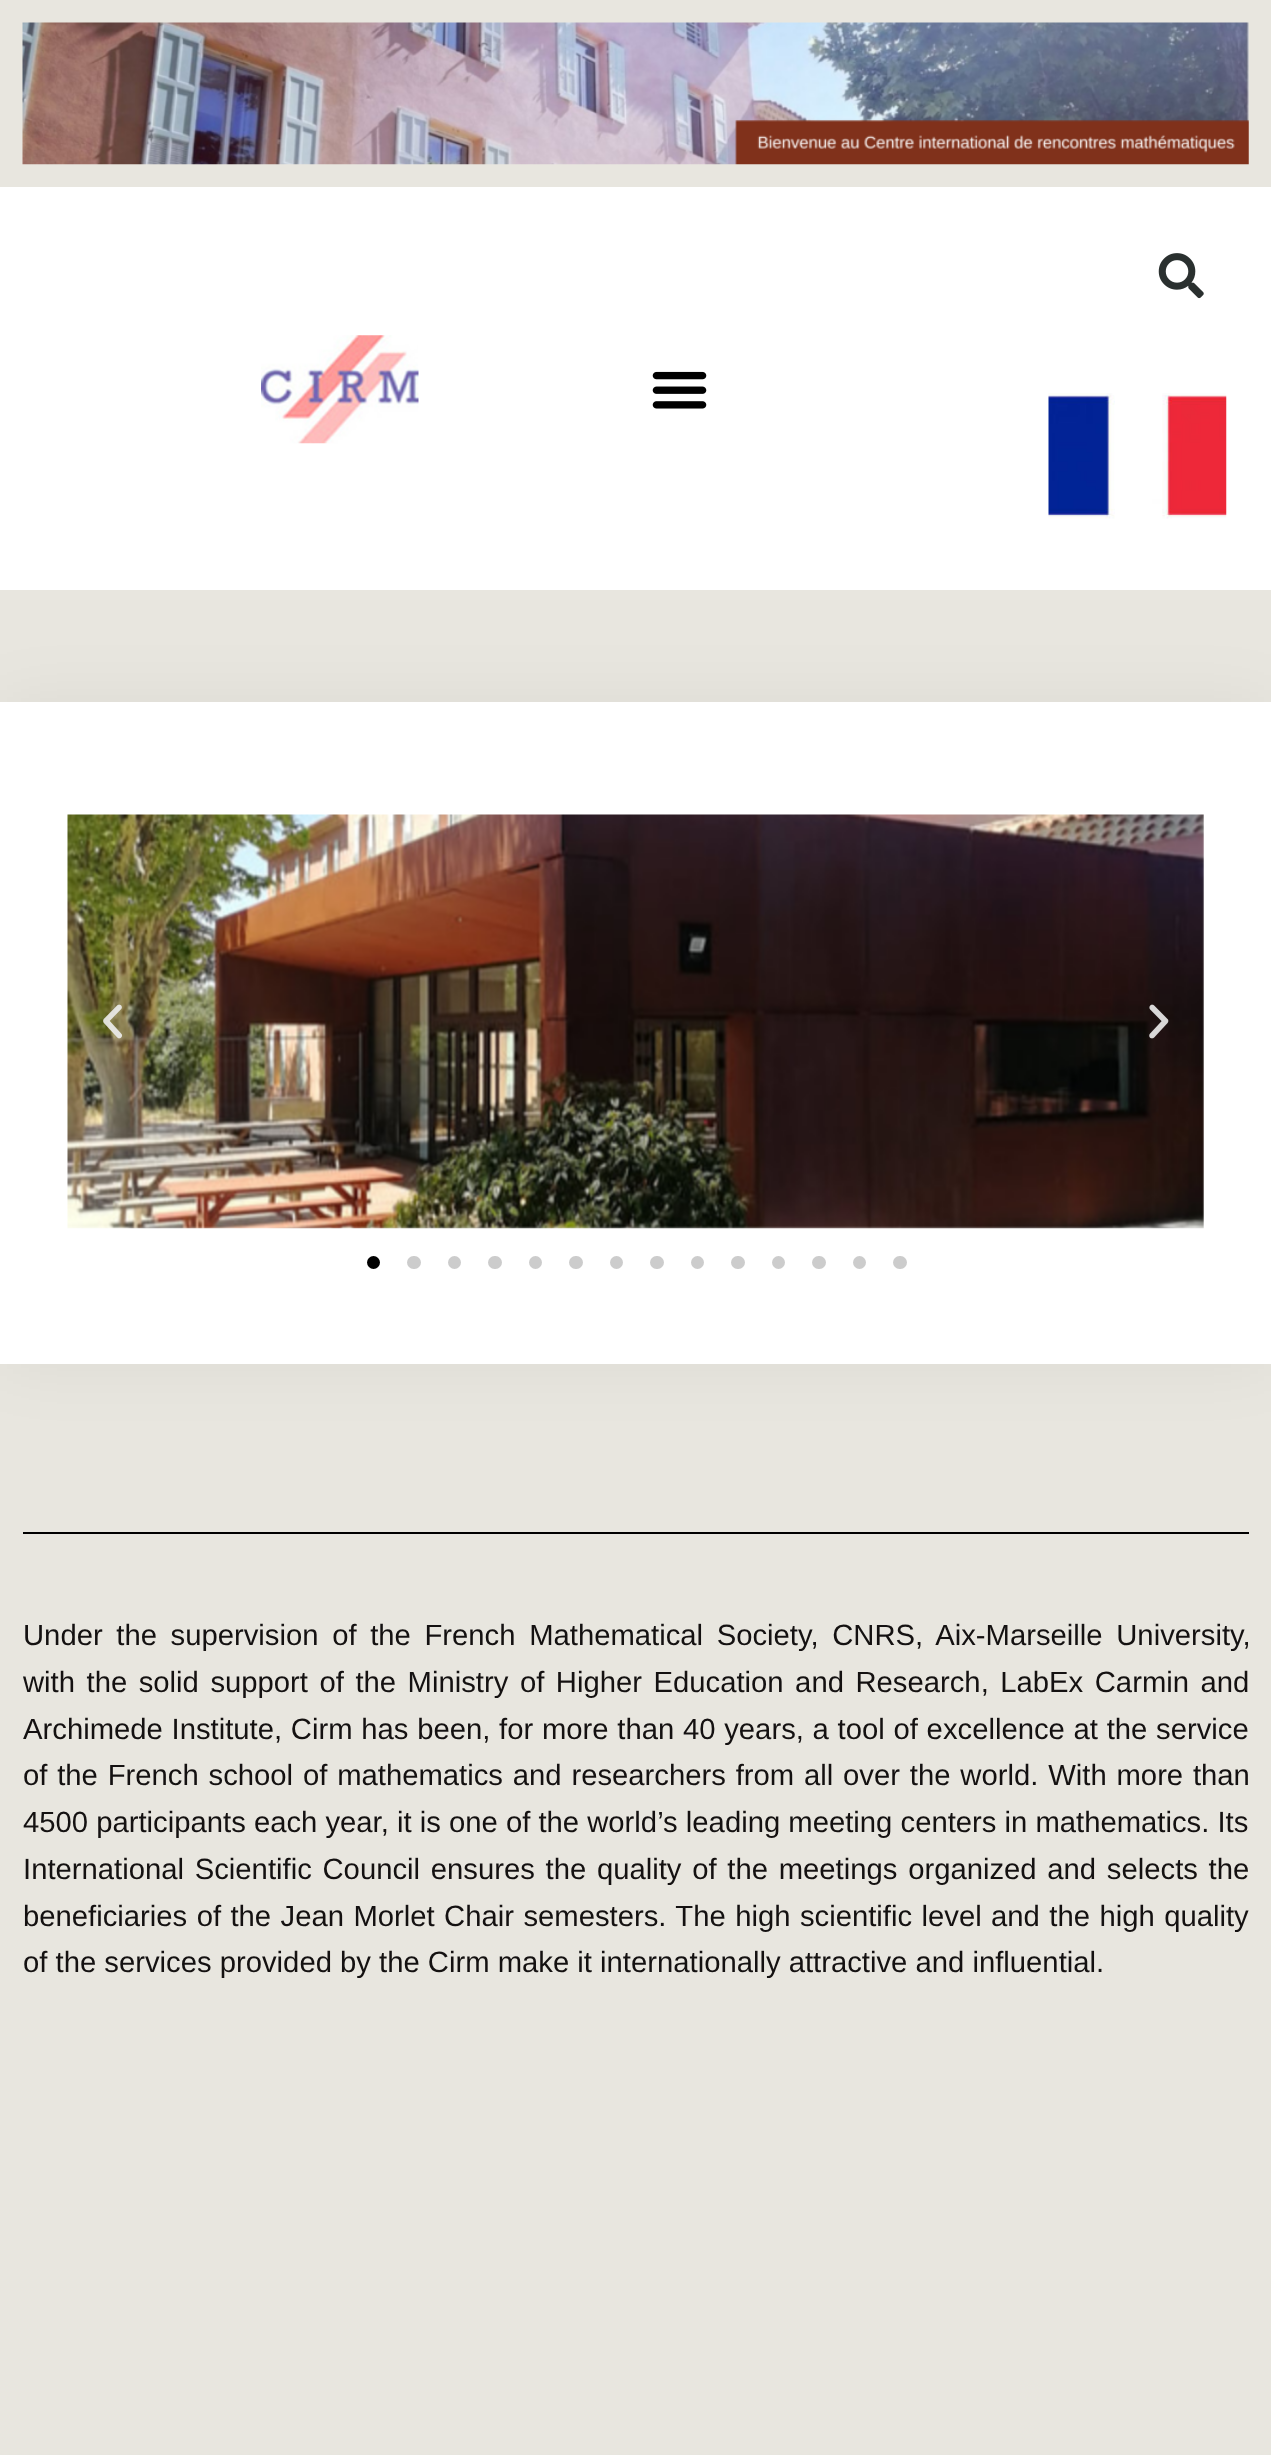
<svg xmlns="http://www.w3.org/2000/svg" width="1271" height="2455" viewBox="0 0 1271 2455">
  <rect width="100%" height="100%" fill="#e8e6df"/>
  <image x="22" y="22" width="1227" height="143" href="img/1.png"/>
  <path d="M0 187h1271v403H0z" fill="#fff"/>
  <image x="261" y="335" width="158" height="109" href="img/2.png"/>
  <image x="652" y="371" width="55" height="38" href="img/3.png"/>
  <image x="1158" y="253" width="46" height="46" href="img/4.png"/>
  <image x="1048" y="393" width="179" height="126" href="img/5.png"/>
  <path d="M0 702h1271v662H0z" fill="#0000000d" filter="blur(34px)"/>
  <path d="M0 702h1271v662H0z" fill="#fff"/>
  <image x="67" y="814" width="1137" height="415" href="img/6.png"/>
  <image x="103" y="1004" width="20" height="35" href="img/7.png"/>
  <image x="1149" y="1004" width="20" height="35" href="img/8.png"/>
  <circle cx="373.5" cy="1262.5" r="6.5" fill="#000"/>
  <rect x="407" y="1256" width="14" height="13" rx="6.5" fill="#ccc"/>
  <circle cx="454.5" cy="1262.5" r="6.5" fill="#ccc"/>
  <rect x="488" y="1256" width="14" height="13" rx="6.5" fill="#ccc"/>
  <circle cx="535.5" cy="1262.5" r="6.5" fill="#ccc"/>
  <rect x="569" y="1256" width="14" height="13" rx="6.5" fill="#ccc"/>
  <circle cx="616.5" cy="1262.5" r="6.5" fill="#ccc"/>
  <rect x="650" y="1256" width="14" height="13" rx="6.5" fill="#ccc"/>
  <circle cx="697.5" cy="1262.5" r="6.5" fill="#ccc"/>
  <rect x="731" y="1256" width="14" height="13" rx="6.5" fill="#ccc"/>
  <circle cx="778.5" cy="1262.5" r="6.5" fill="#ccc"/>
  <rect x="812" y="1256" width="14" height="13" rx="6.5" fill="#ccc"/>
  <circle cx="859.5" cy="1262.5" r="6.5" fill="#ccc"/>
  <rect x="893" y="1256" width="14" height="13" rx="6.5" fill="#ccc"/>
  <path d="M23 1532h1226v2H23z" fill="#000"/>
  <g font-family="Liberation Sans" font-size="29.25" fill="#141111">
    <text x="23" y="1645" word-spacing="5.5">Under the supervision of the French Mathematical Society, CNRS, Aix-Marseille University,</text>
    <text x="23" y="1692" word-spacing="3.4">with the solid support of the Ministry of Higher Education and Research, LabEx Carmin and</text>
    <text x="23" y="1739" word-spacing="0.6">Archimede Institute, Cirm has been, for more than 40 years, a tool of excellence at the service</text>
    <text x="23" y="1785" word-spacing="1.7">of the French school of mathematics and researchers from all over the world. With more than</text>
    <text x="23" y="1832">4500 participants each year, it is one of the world’s leading meeting centers in mathematics. Its</text>
    <text x="23" y="1879" word-spacing="2.6">International Scientific Council ensures the quality of the meetings organized and selects the</text>
    <text x="23" y="1926" word-spacing="1.3">beneficiaries of the Jean Morlet Chair semesters. The high scientific level and the high quality</text>
    <text x="23" y="1972">of the services provided by the Cirm make it internationally attractive and influential.</text>
  </g>
</svg>
